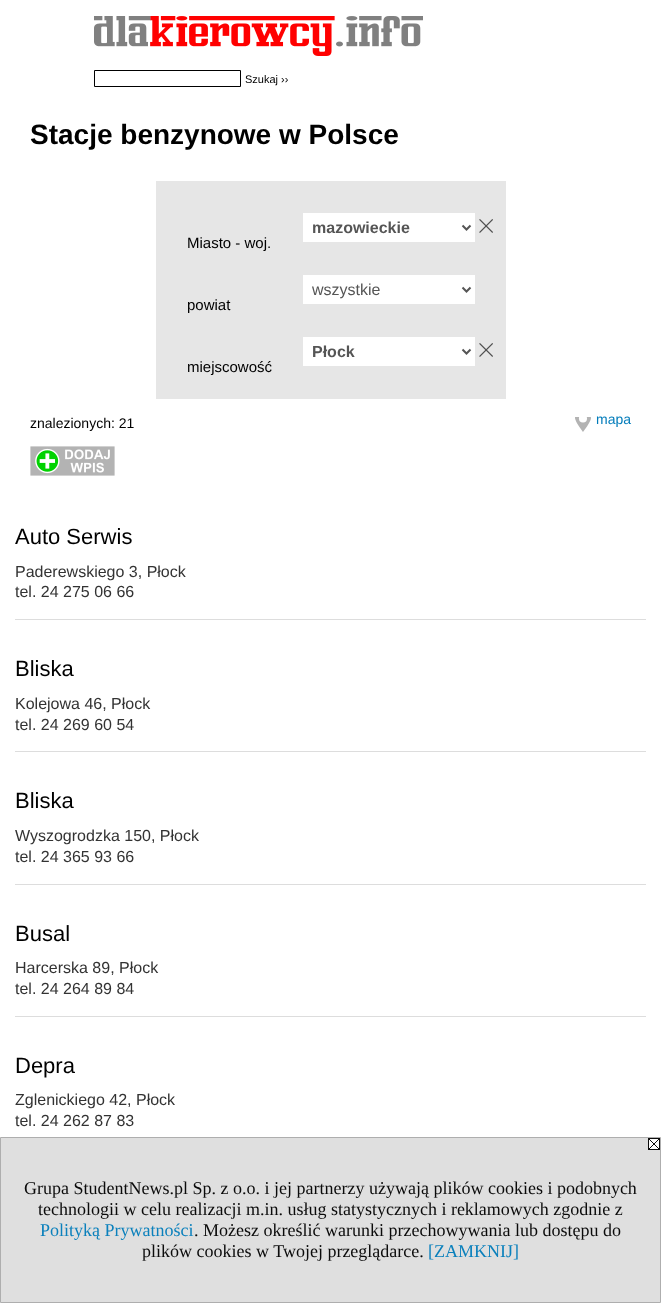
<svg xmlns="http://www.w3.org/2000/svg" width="661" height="1303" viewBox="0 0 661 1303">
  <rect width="100%" height="100%" fill="#fff"/>
  <image x="94" y="16" width="329" height="40" href="img/1.png"/>
  <path d="M94.5 70.5h146v16H94.5z" fill="none" stroke="#000"/>
  <path d="M156 181h350v218H156z" fill="#e6e6e6"/>
  <path d="M303 213h172v29H303z" fill="#fff"/>
  <path d="M462.5 225.5L466.5 229.5L470.5 225.5" fill="none" stroke="#555" stroke-width="2"/>
  <image x="479" y="219" width="14" height="14" href="img/2.png"/>
  <path d="M303 275h172v29H303z" fill="#fff"/>
  <path d="M462.5 287.5L466.5 291.5L470.5 287.5" fill="none" stroke="#555" stroke-width="2"/>
  <path d="M303 337h172v29H303z" fill="#fff"/>
  <path d="M462.5 349.5L466.5 353.5L470.5 349.5" fill="none" stroke="#555" stroke-width="2"/>
  <image x="479" y="343" width="14" height="14" href="img/2.png"/>
  <image x="575" y="417" width="16" height="15" href="img/3.png"/>
  <image x="30" y="446" width="85" height="30" href="img/4.png"/>
  <path d="M15 619h631v1H15z" fill="#ddd"/>
  <path d="M15 751h631v1H15z" fill="#ddd"/>
  <path d="M15 884h631v1H15z" fill="#ddd"/>
  <path d="M15 1016h631v1H15z" fill="#ddd"/>
  <path d="M0.5 1137.5h660v165H0.5z" fill="#dfdfdf" stroke="#aeaeae"/>
  <image x="648" y="1138" width="12" height="12" href="img/5.png"/>
  <text x="245" y="83" font-family="Liberation Sans" font-size="11" fill="#000">Szukaj ››</text>
  <text x="30" y="144" font-family="Liberation Sans" font-size="28" font-weight="bold" fill="#000">Stacje benzynowe w Polsce</text>
  <text x="312" y="233" font-family="Liberation Sans" font-size="16" font-weight="bold" fill="#555">mazowieckie</text>
  <text x="187" y="248" font-family="Liberation Sans" font-size="15" fill="#000">Miasto - woj.</text>
  <text x="312" y="295" font-family="Liberation Sans" font-size="16" fill="#555">wszystkie</text>
  <text x="187" y="310" font-family="Liberation Sans" font-size="15" fill="#000">powiat</text>
  <text x="312" y="357" font-family="Liberation Sans" font-size="16" font-weight="bold" fill="#555">Płock</text>
  <text x="187" y="372" font-family="Liberation Sans" font-size="15" fill="#000">miejscowość</text>
  <text x="30" y="428" font-family="Liberation Sans" font-size="14" fill="#000">znalezionych: 21</text>
  <text x="596" y="424" font-family="Liberation Sans" font-size="14" fill="#007bba">mapa</text>
  <text x="15" y="544" font-family="Liberation Sans" font-size="22" fill="#000">Auto Serwis</text>
  <g font-family="Liberation Sans" font-size="16" fill="#333">
    <text x="15" y="577">Paderewskiego 3, Płock</text>
    <text x="15" y="597">tel. 24 275 06 66</text>
  </g>
  <text x="15" y="676" font-family="Liberation Sans" font-size="22" fill="#000">Bliska</text>
  <g font-family="Liberation Sans" font-size="16" fill="#333">
    <text x="15" y="709">Kolejowa 46, Płock</text>
    <text x="15" y="730">tel. 24 269 60 54</text>
  </g>
  <text x="15" y="808" font-family="Liberation Sans" font-size="22" fill="#000">Bliska</text>
  <g font-family="Liberation Sans" font-size="16" fill="#333">
    <text x="15" y="841">Wyszogrodzka 150, Płock</text>
    <text x="15" y="862">tel. 24 365 93 66</text>
  </g>
  <text x="15" y="941" font-family="Liberation Sans" font-size="22" fill="#000">Busal</text>
  <g font-family="Liberation Sans" font-size="16" fill="#333">
    <text x="15" y="973">Harcerska 89, Płock</text>
    <text x="15" y="994">tel. 24 264 89 84</text>
  </g>
  <text x="15" y="1073" font-family="Liberation Sans" font-size="22" fill="#000">Depra</text>
  <g font-family="Liberation Sans" font-size="16" fill="#333">
    <text x="15" y="1105">Zglenickiego 42, Płock</text>
    <text x="15" y="1126">tel. 24 262 87 83</text>
  </g>
  <g font-family="Liberation Serif" font-size="18" fill="#0b0b0b">
    <text x="24" y="1194">Grupa StudentNews.pl Sp. z o.o. i jej partnerzy używają plików cookies i podobnych</text>
    <text x="38" y="1215">technologii w celu realizacji m.in. usług statystycznych i reklamowych zgodnie z</text>
  </g>
  <text x="40" y="1236" font-family="Liberation Serif" font-size="18" fill="#0b80bc">Polityką Prywatności</text>
  <g font-family="Liberation Serif" font-size="18" fill="#0b0b0b">
    <text x="194" y="1236">. Możesz określić warunki przechowywania lub dostępu do</text>
    <text x="142" y="1257">plików cookies w Twojej przeglądarce.</text>
  </g>
  <text x="428" y="1257" font-family="Liberation Serif" font-size="18" fill="#0b80bc">[ZAMKNIJ]</text>
</svg>
